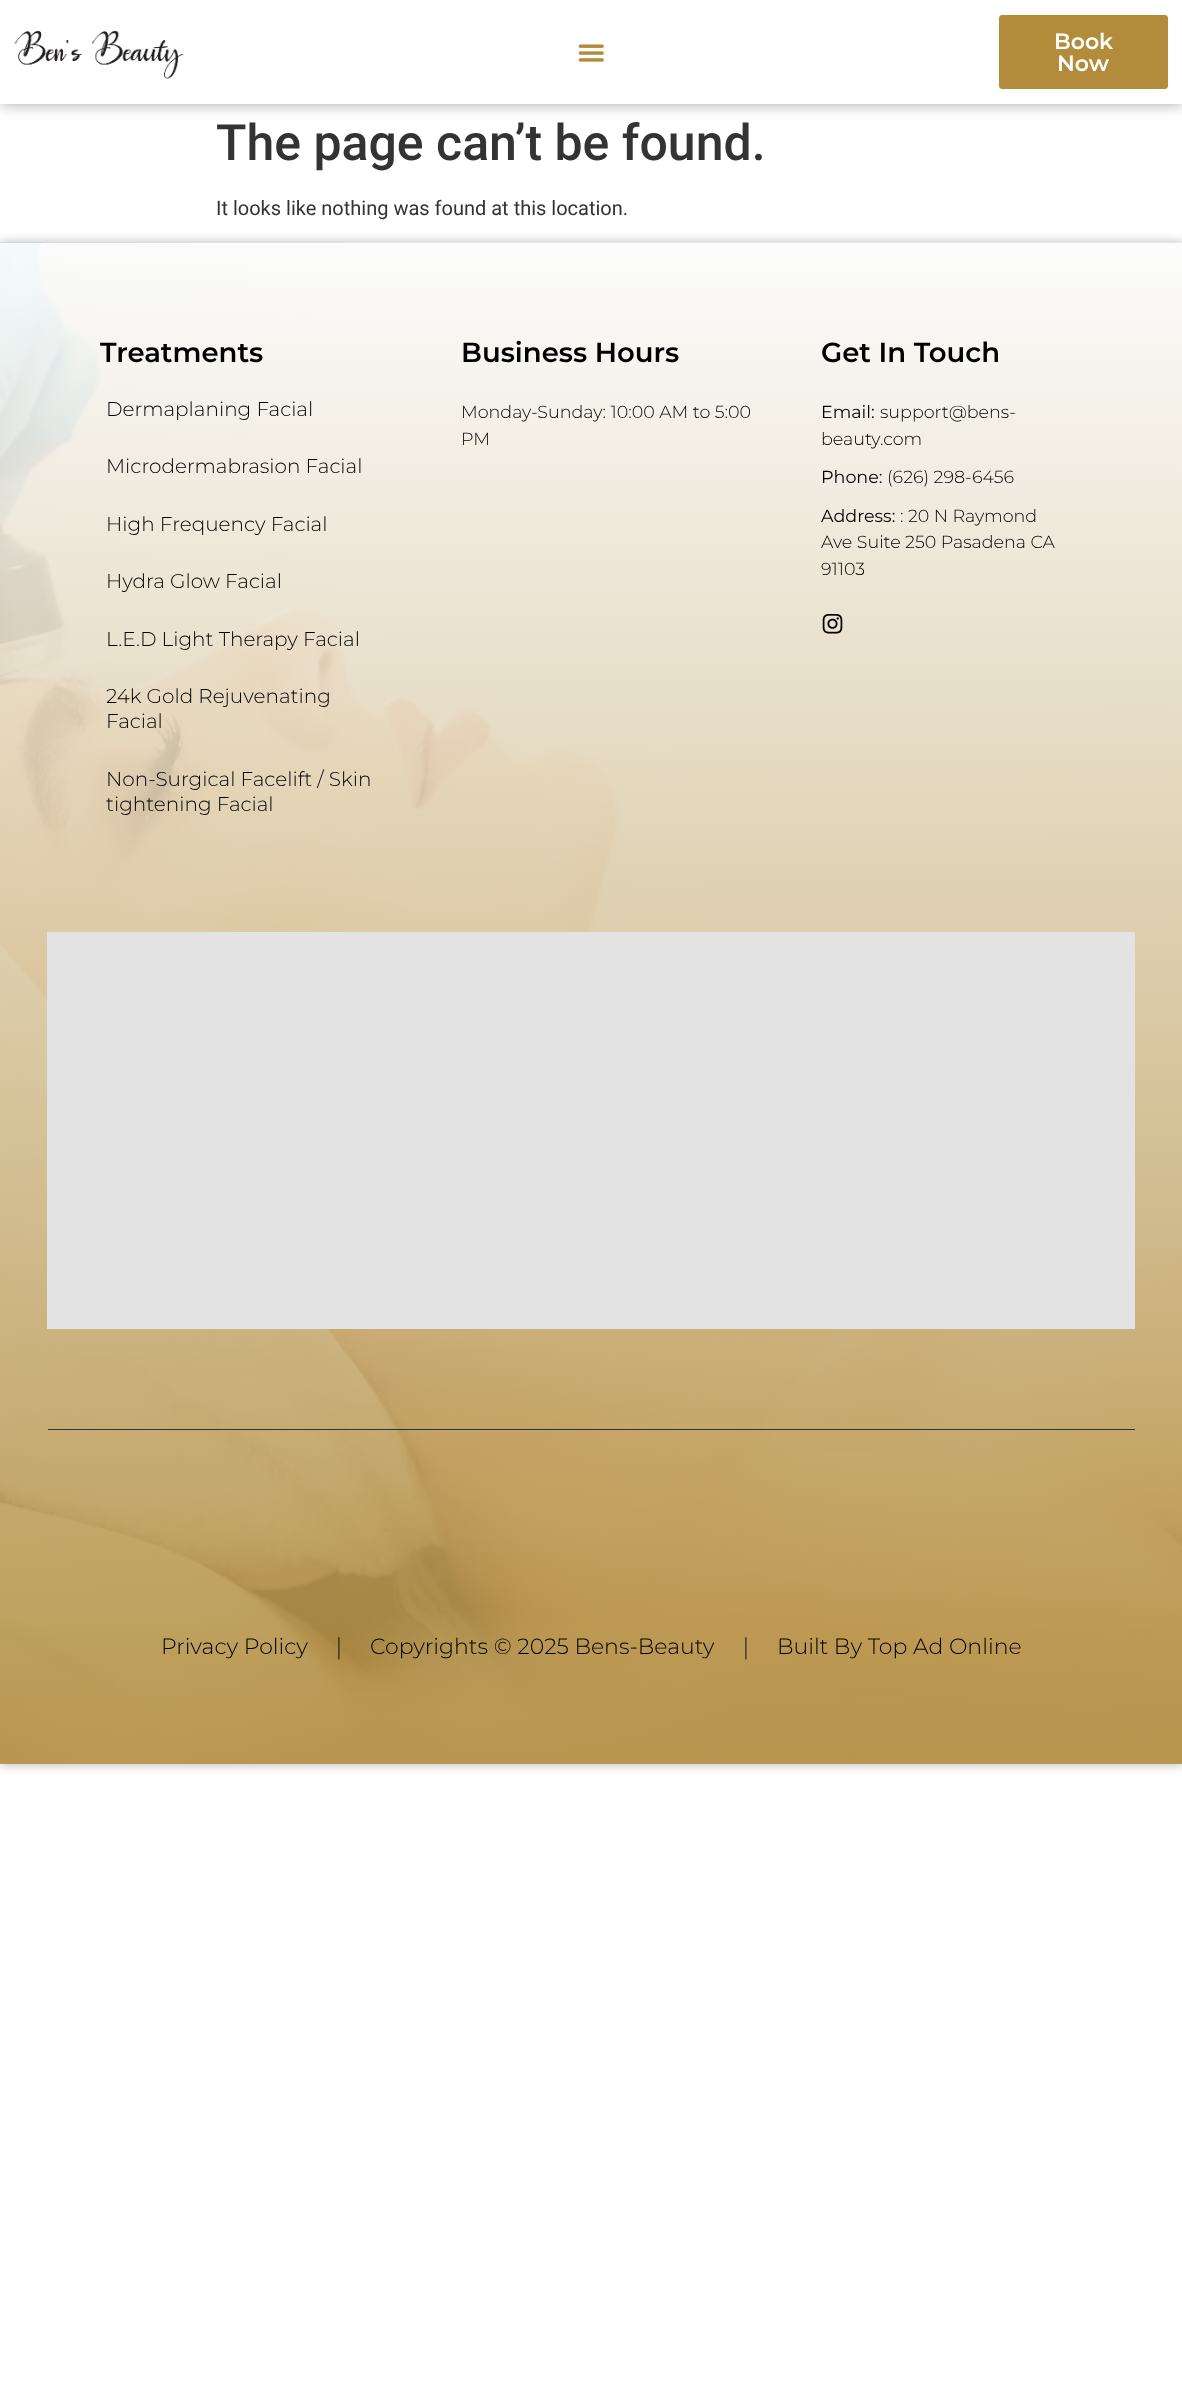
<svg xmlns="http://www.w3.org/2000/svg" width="1182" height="2408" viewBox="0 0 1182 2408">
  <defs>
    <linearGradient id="g1" gradientUnits="userSpaceOnUse" x1="591" y1="242" x2="591" y2="1764"><stop offset="0" stop-color="#fff" stop-opacity="0.88"/><stop offset="1" stop-color="#b28c3a" stop-opacity="0.88"/></linearGradient>
  </defs>
  <rect width="100%" height="100%" fill="#fff"/>
  <path d="M0 0h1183v104H0z" fill="#51515180" filter="blur(7.5px)"/>
  <path d="M0 0h1182v104H0z" fill="#fff"/>
  <image x="14" y="30" width="170" height="49" href="img/1.png"/>
  <image x="578" y="44" width="26" height="18" href="img/2.png"/>
  <rect x="998.5" y="14.5" width="170" height="75" rx="3.5" fill="#b28c3a" stroke="#fff"/>
  <path d="M0 243h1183v1521H0z" fill="#66656580" filter="blur(6px)"/>
  <path d="M0 1763h1182v1H0z" fill="#fff"/>
  <image x="0" y="242" width="1182" height="1522" href="img/3.png"/>
  <path d="M0 243h1182v1521H0z" fill="url(#g1)"/>
  <image x="822" y="614" width="21" height="20" href="img/4.png"/>
  <path d="M47 932h1088v397H47z" fill="#e3e3e3"/>
  <path d="M48 1429h1087v1H48z" fill="#333"/>
  <g font-family="Montserrat" font-size="22" font-weight="600" fill="#fff">
    <text x="1054" y="49">Book</text>
    <text x="1057" y="71">Now</text>
  </g>
  <text x="216" y="160" font-family="Roboto" font-size="50" font-weight="500" fill="#333">The page can’t be found.</text>
  <text x="216" y="215" font-family="Roboto" font-size="20" fill="#333">It looks like nothing was found at this location.</text>
  <text x="100" y="362" font-family="Montserrat" font-size="27.5" font-weight="600" fill="#000">Treatments</text>
  <g font-family="Montserrat" font-size="20" font-weight="300" fill="#000">
    <text x="106" y="416">Dermaplaning Facial</text>
    <text x="106" y="473">Microdermabrasion Facial</text>
    <text x="106" y="531">High Frequency Facial</text>
    <text x="106" y="588">Hydra Glow Facial</text>
    <text x="106" y="646">L.E.D Light Therapy Facial</text>
    <text x="106" y="703">24k Gold Rejuvenating</text>
    <text x="106" y="728">Facial</text>
    <text x="106" y="786">Non-Surgical Facelift / Skin</text>
    <text x="106" y="811">tightening Facial</text>
  </g>
  <text x="461" y="362" font-family="Montserrat" font-size="27.5" font-weight="600" fill="#000">Business Hours</text>
  <g font-family="Montserrat" font-size="17.5" font-weight="300" fill="#000">
    <text x="461" y="418">Monday-Sunday: 10:00 AM to 5:00</text>
    <text x="461" y="445">PM</text>
  </g>
  <text x="821" y="362" font-family="Montserrat" font-size="27.5" font-weight="600" fill="#000">Get In Touch</text>
  <text x="821" y="418" font-family="Montserrat" font-size="17.5" fill="#000">Email:</text>
  <g font-family="Montserrat" font-size="17.5" font-weight="300" fill="#000">
    <text x="880" y="418">support@bens-</text>
    <text x="821" y="445">beauty.com</text>
  </g>
  <text x="821" y="483" font-family="Montserrat" font-size="17.5" fill="#000">Phone:</text>
  <text x="887" y="483" font-family="Montserrat" font-size="17.5" font-weight="300" fill="#000">(626) 298-6456</text>
  <text x="821" y="522" font-family="Montserrat" font-size="17.5" fill="#000">Address:</text>
  <g font-family="Montserrat" font-size="17.5" font-weight="300" fill="#000">
    <text x="900" y="522">: 20 N Raymond</text>
    <text x="821" y="548">Ave Suite 250 Pasadena CA</text>
    <text x="821" y="575">91103</text>
  </g>
  <text x="161" y="1654" font-family="Montserrat" font-size="22" font-weight="300" fill="#000">Privacy Policy</text>
  <text x="333" y="1654" font-family="Open Sans" font-size="22" font-weight="300" fill="#000">|</text>
  <text x="370" y="1654" font-family="Montserrat" font-size="22" font-weight="300" fill="#000">Copyrights © 2025 Bens-Beauty</text>
  <text x="740" y="1654" font-family="Open Sans" font-size="22" font-weight="300" fill="#000">|</text>
  <text x="777" y="1654" font-family="Montserrat" font-size="22" font-weight="300" fill="#000">Built By Top Ad Online</text>
</svg>
